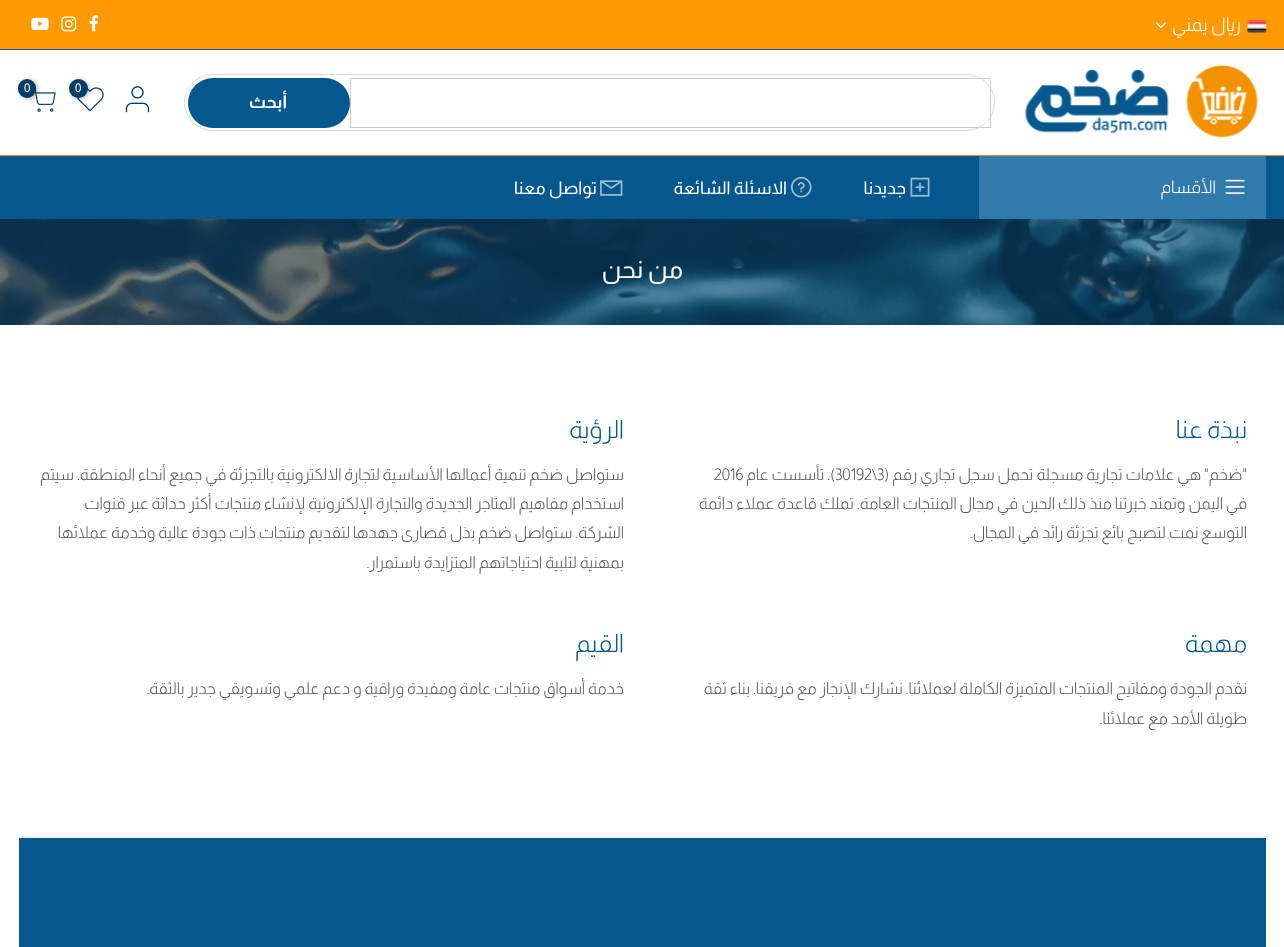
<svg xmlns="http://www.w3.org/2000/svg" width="1284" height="947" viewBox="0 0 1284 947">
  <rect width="100%" height="100%" fill="#fff"/>
  <path d="M0 0h1284v49H0z" fill="#f90"/>
  <path d="M0 49h1284v1H0z" fill="#05588e"/>
  <image x="1247" y="20" width="20" height="13" href="img/1.png"/>
  <image x="1155" y="22" width="12" height="7" href="img/2.png"/>
  <image x="89" y="15" width="10" height="17" href="img/3.png"/>
  <image x="61" y="16" width="16" height="16" href="img/4.png"/>
  <image x="31" y="17" width="18" height="13" href="img/5.png"/>
  <image x="1025" y="64" width="234" height="74" href="img/6.png"/>
  <image x="125" y="86" width="25" height="27" href="img/7.png"/>
  <image x="76" y="87" width="28" height="25" href="img/8.png"/>
  <rect x="70" y="80" width="19" height="19" rx="9.5" fill="#0000004d" filter="blur(2px)"/>
  <circle cx="78.5" cy="88.5" r="9.5" fill="#003e66"/>
  <image x="35" y="87" width="21" height="25" href="img/9.png"/>
  <rect x="19" y="80" width="19" height="19" rx="9.5" fill="#0000004d" filter="blur(2px)"/>
  <rect x="18" y="79" width="18" height="19" rx="9" fill="#003e66"/>
  <rect x="184.5" y="74.5" width="810" height="56" rx="28" fill="none" stroke="#ddd"/>
  <path d="M350.5 78.5h640v49H350.5z" fill="none" stroke="#ccc"/>
  <rect x="188" y="78" width="162" height="50" rx="25" fill="#05588e"/>
  <path d="M0 156h1284v63H0z" fill="#05588e"/>
  <path d="M0 155h1284v1H0z" fill="#f39200"/>
  <path d="M979 156h287v63H979z" fill="#307bac"/>
  <image x="1225" y="179" width="20" height="15" href="img/10.png"/>
  <image x="910" y="177" width="20" height="20" href="img/11.png"/>
  <image x="790" y="176" width="22" height="22" href="img/12.png"/>
  <image x="600" y="180" width="23" height="16" href="img/13.png"/>
  <image x="0" y="219" width="1284" height="106" href="img/14.png"/>
  <path d="M19 837h1247v1H19z" fill="#f6f6f8"/>
  <path d="M19 838h1247v109H19z" fill="#05588e"/>
  <path d="M19 836h1247v1H19z" fill="#ededed"/>
  <text x="1241" y="31" font-family="Almarai" font-size="19" font-weight="300" direction="rtl" fill="#fff">ريال يمني</text>
  <g font-family="Almarai" font-size="12" fill="#fff">
    <text x="75" y="92">0</text>
    <text x="24" y="92">0</text>
  </g>
  <text x="287" y="108" font-family="Almarai" font-size="17.5" font-weight="bold" direction="rtl" fill="#fff">أبحث</text>
  <text x="1216" y="193" font-family="Almarai" font-size="17.5" font-weight="300" direction="rtl" fill="#fff">الأقسام</text>
  <g font-family="Almarai" font-size="17.5" direction="rtl" fill="#fff">
    <text x="906" y="194">جديدنا</text>
    <text x="787" y="194">الاسئلة الشائعة</text>
    <text x="597" y="194">تواصل معنا</text>
  </g>
  <text x="683" y="278" font-family="Almarai" font-size="25" direction="rtl" fill="#fff">من نحن</text>
  <text x="1247" y="438" font-family="Almarai" font-size="25" font-weight="300" direction="rtl" fill="#05588e">نبذة عنا</text>
  <text x="1247" y="480" font-family="Almarai" font-size="16.25" font-weight="300" direction="rtl" fill="#585555">"ضخم" هي علامات تجارية مسجلة تحمل سجل تجاري رقم (</text>
  <text x="835" y="480" font-family="Almarai" font-size="16.25" font-weight="300" fill="#585555">30192\3</text>
  <text x="835" y="480" font-family="Almarai" font-size="16.25" font-weight="300" direction="rtl" fill="#585555">). تأسست عام</text>
  <text x="714" y="480" font-family="Almarai" font-size="16.25" font-weight="300" fill="#585555">2016</text>
  <g font-family="Almarai" font-size="16.25" font-weight="300" direction="rtl" fill="#585555">
    <text x="1247" y="509">في اليمن وتمتد خبرتنا منذ ذلك الحين في مجال المنتجات العامة. تملك قاعدة عملاء دائمة</text>
    <text x="1247" y="538">التوسع نمت لتصبح بائع تجزئة رائد في المجال.</text>
  </g>
  <text x="624" y="438" font-family="Almarai" font-size="25" font-weight="300" direction="rtl" fill="#05588e">الرؤية</text>
  <g font-family="Almarai" font-size="16.25" font-weight="300" direction="rtl" fill="#585555">
    <text x="624" y="480">ستواصل ضخم تنمية أعمالها الأساسية لتجارة الالكترونية بالتجزئة في جميع أنحاء المنطقة. سيتم</text>
    <text x="624" y="509">استخدام مفاهيم المتاجر الجديدة والتجارة الإلكترونية لإنشاء منتجات أكثر حداثة عبر قنوات</text>
    <text x="624" y="538">الشركة. ستواصل ضخم بذل قصارى جهدها لتقديم منتجات ذات جودة عالية وخدمة عملائها</text>
    <text x="624" y="568">بمهنية لتلبية احتياجاتهم المتزايدة باستمرار.</text>
  </g>
  <text x="1247" y="652" font-family="Almarai" font-size="25" font-weight="300" direction="rtl" fill="#05588e">مهمة</text>
  <g font-family="Almarai" font-size="16.25" font-weight="300" direction="rtl" fill="#585555">
    <text x="1247" y="694">نقدم الجودة ومفاتيح المنتجات المتميزة الكاملة لعملائنا. نشارك الإنجاز مع فريقنا. بناء ثقة</text>
    <text x="1247" y="724">طويلة الأمد مع عملائنا.</text>
  </g>
  <text x="624" y="652" font-family="Almarai" font-size="25" font-weight="300" direction="rtl" fill="#05588e">القيم</text>
  <text x="624" y="694" font-family="Almarai" font-size="16.25" font-weight="300" direction="rtl" fill="#585555">خدمة أسواق منتجات عامة ومفيدة وراقية و دعم علمي وتسويقي جدير بالثقة.</text>
</svg>
